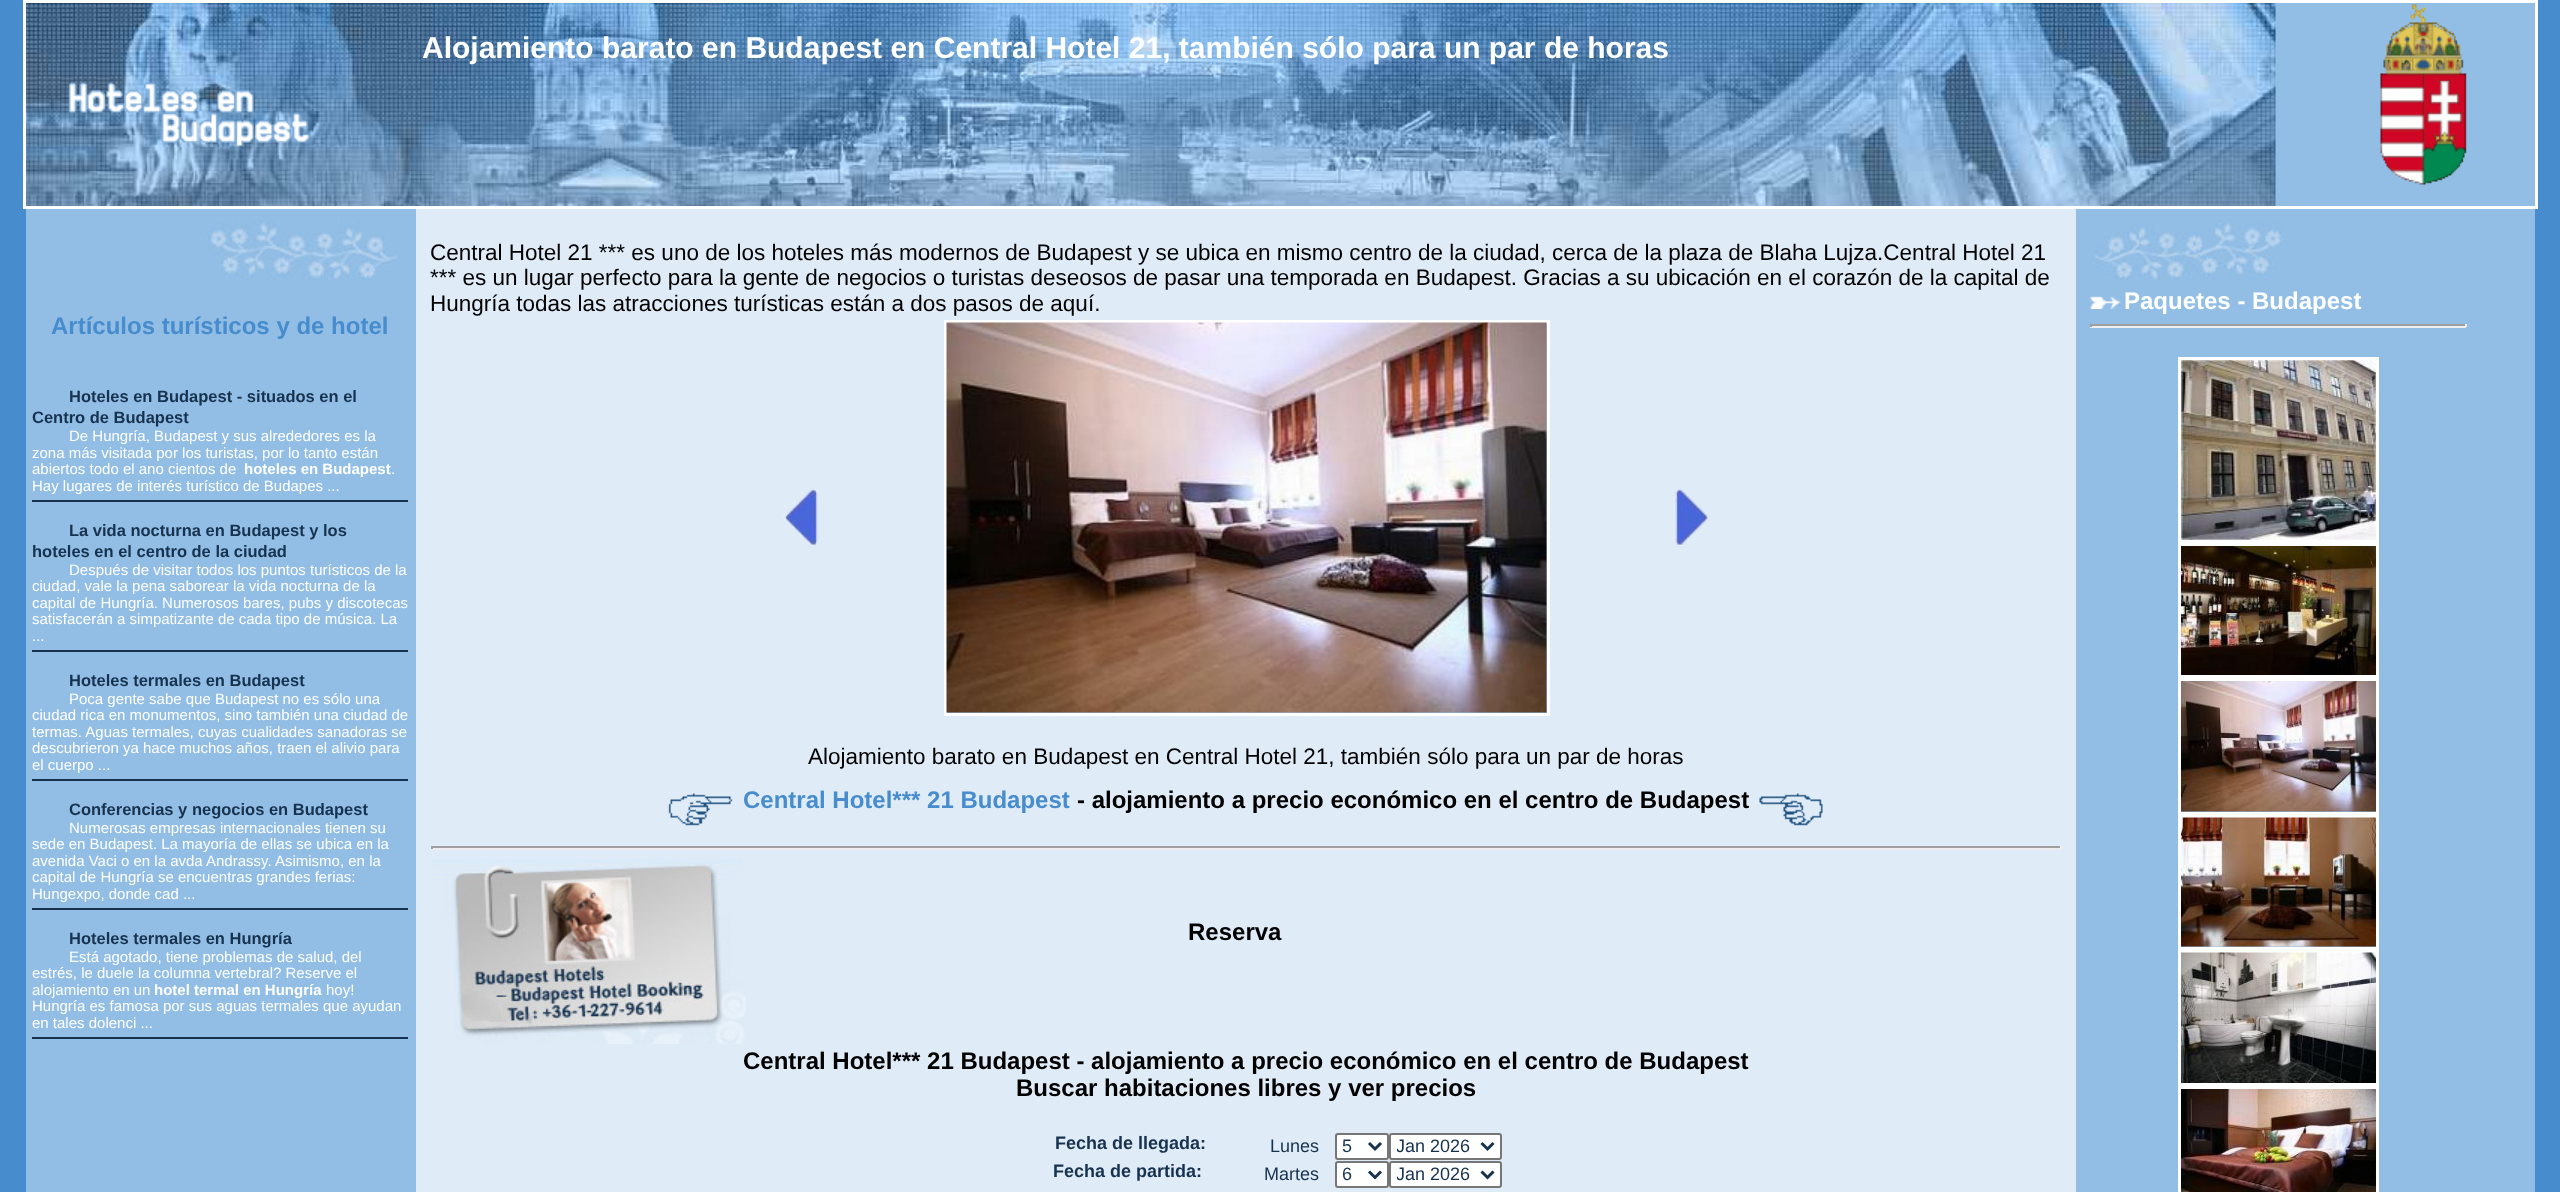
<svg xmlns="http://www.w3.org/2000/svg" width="2560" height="1192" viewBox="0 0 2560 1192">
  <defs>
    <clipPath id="clip1"><path d="M1397 1134h79v24H1397z"/></clipPath>
    <clipPath id="clip2"><path d="M1397 1163h79v24H1397z"/></clipPath>
  </defs>
  <rect width="100%" height="100%" fill="#478ccd"/>
  <path d="M2275 3h260v203H2275z" fill="#92bee5"/>
  <image x="26" y="3" width="2250" height="203" href="img/1.png"/>
  <path d="M24.5 1.5h2512v206H24.5z" fill="none" stroke="#fff" stroke-width="3"/>
  <image x="2380" y="4" width="87" height="181" href="img/2.png"/>
  <image x="68" y="82" width="242" height="64" href="img/3.png"/>
  <path d="M26 209h2509v983H26z" fill="#92bee5"/>
  <path d="M416 209h1660v983H416z" fill="#dfebf7"/>
  <image x="783" y="489" width="35" height="57" href="img/4.png"/>
  <path d="M945.5 321.5h603v393H945.5z" fill="#92bee5" stroke="#fff" stroke-width="3"/>
  <image x="946" y="322" width="601" height="391" href="img/5.png"/>
  <image x="1675" y="489" width="33" height="57" href="img/6.png"/>
  <image x="668" y="793" width="65" height="33" href="img/7.png"/>
  <image x="1759" y="793" width="64" height="33" href="img/8.png"/>
  <path d="M431 846h1630v2H431z" fill="#9f9f9f"/>
  <path d="M2060 846h2v3H2060z" fill="#eee"/>
  <path d="M431 848h1630v2H431z" fill="#eee"/>
  <path d="M431 846h2v3H431z" fill="#9f9f9f"/>
  <image x="431" y="858" width="315" height="186" href="img/9.png"/>
  <rect x="1336" y="1134" width="52" height="25" rx="2" fill="#fff" stroke="#767676" stroke-width="2"/>
  <path d="M1369 1143L1375 1149L1381 1143" fill="none" stroke="#16324e" stroke-width="3"/>
  <rect x="1390" y="1134" width="111" height="25" rx="2" fill="#fff" stroke="#767676" stroke-width="2"/>
  <path d="M1481.5 1143L1487.5 1149L1493.5 1143" fill="none" stroke="#16324e" stroke-width="3"/>
  <rect x="1336" y="1162" width="52" height="25" rx="2" fill="#fff" stroke="#767676" stroke-width="2"/>
  <path d="M1369 1171.5L1375 1177.5L1381 1171.5" fill="none" stroke="#16324e" stroke-width="3"/>
  <rect x="1390" y="1162" width="111" height="25" rx="2" fill="#fff" stroke="#767676" stroke-width="2"/>
  <path d="M1481.5 1171.5L1487.5 1177.5L1493.5 1171.5" fill="none" stroke="#16324e" stroke-width="3"/>
  <image x="2094" y="221" width="190" height="60" href="img/10.png"/>
  <image x="2089" y="296" width="32" height="13" href="img/11.png"/>
  <path d="M2090 324h376v2H2090z" fill="#9f9f9f"/>
  <path d="M2465 324h2v3H2465z" fill="#eee"/>
  <path d="M2090 326h376v2H2090z" fill="#eee"/>
  <path d="M2090 324h2v3H2090z" fill="#9f9f9f"/>
  <path d="M2179.5 358.5h198v183H2179.5z" fill="none" stroke="#fff" stroke-width="3"/>
  <image x="2181" y="360" width="195" height="180" href="img/12.png"/>
  <path d="M2179.5 544.5h198v132H2179.5z" fill="none" stroke="#fff" stroke-width="3"/>
  <image x="2181" y="546" width="195" height="129" href="img/13.png"/>
  <path d="M2179.5 679.5h198v134H2179.5z" fill="none" stroke="#fff" stroke-width="3"/>
  <image x="2181" y="681" width="195" height="131" href="img/14.png"/>
  <path d="M2179.5 816.5h198v132H2179.5z" fill="none" stroke="#fff" stroke-width="3"/>
  <image x="2181" y="817" width="195" height="130" href="img/15.png"/>
  <path d="M2179.5 951.5h198v133H2179.5z" fill="none" stroke="#fff" stroke-width="3"/>
  <image x="2181" y="952" width="195" height="131" href="img/16.png"/>
  <path d="M2179.5 1087.5h198v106H2179.5z" fill="none" stroke="#fff" stroke-width="3"/>
  <image x="2181" y="1089" width="195" height="103" href="img/17.png"/>
  <image x="207" y="221" width="191" height="60" href="img/18.png"/>
  <path d="M32 500h376v2H32z" fill="#16324e"/>
  <path d="M32 650h376v2H32z" fill="#16324e"/>
  <path d="M32 779h376v2H32z" fill="#16324e"/>
  <path d="M32 908h376v2H32z" fill="#16324e"/>
  <path d="M32 1037h376v2H32z" fill="#16324e"/>
  <text x="422" y="58" font-family="Liberation Sans" font-size="30" font-weight="bold" fill="#feffff">Alojamiento barato en Budapest en Central Hotel 21, también sólo para un par de horas</text>
  <g font-family="Liberation Sans" font-size="22.5" fill="#000">
    <text x="430" y="260">Central Hotel 21 *** es uno de los hoteles más modernos de Budapest y se ubica en mismo centro de la ciudad, cerca de la plaza de Blaha Lujza.Central Hotel 21</text>
    <text x="430" y="285">*** es un lugar perfecto para la gente de negocios o turistas deseosos de pasar una temporada en Budapest. Gracias a su ubicación en el corazón de la capital de</text>
    <text x="430" y="311">Hungría todas las atracciones turísticas están a dos pasos de aquí.</text>
    <text x="808" y="764">Alojamiento barato en Budapest en Central Hotel 21, también sólo para un par de horas</text>
  </g>
  <text x="743" y="808" font-family="Liberation Sans" font-size="24" font-weight="bold" fill="#478ccc">Central Hotel*** 21 Budapest</text>
  <g font-family="Liberation Sans" font-size="24" font-weight="bold" fill="#000">
    <text x="1077" y="808">- alojamiento a precio económico en el centro de Budapest</text>
    <text x="1188" y="940">Reserva</text>
    <text x="743" y="1069">Central Hotel*** 21 Budapest - alojamiento a precio económico en el centro de Budapest</text>
    <text x="1016" y="1096">Buscar habitaciones libres y ver precios</text>
  </g>
  <text x="1055" y="1149" font-family="Liberation Sans" font-size="18" font-weight="bold" fill="#16324e">Fecha de llegada:</text>
  <g font-family="Liberation Sans" font-size="18" fill="#16324e">
    <text x="1270" y="1152">Lunes</text>
    <text x="1342" y="1152">5</text>
  </g>
  <g clip-path="url(#clip1)">
    <text x="1396" y="1152" font-family="Liberation Sans" font-size="18" fill="#16324e">Jan 2026</text>
  </g>
  <text x="1053" y="1177" font-family="Liberation Sans" font-size="18" font-weight="bold" fill="#16324e">Fecha de partida:</text>
  <g font-family="Liberation Sans" font-size="18" fill="#16324e">
    <text x="1264" y="1180">Martes</text>
    <text x="1342" y="1180">6</text>
  </g>
  <g clip-path="url(#clip2)">
    <text x="1396" y="1180" font-family="Liberation Sans" font-size="18" fill="#16324e">Jan 2026</text>
  </g>
  <text x="2124" y="309" font-family="Liberation Sans" font-size="24" font-weight="bold" fill="#feffff">Paquetes - Budapest</text>
  <text x="51" y="334" font-family="Liberation Sans" font-size="24" font-weight="bold" fill="#478ccc">Artículos turísticos y de hotel</text>
  <g font-family="Liberation Sans" font-size="16.5" font-weight="bold" fill="#16324e">
    <text x="69" y="402">Hoteles en Budapest - situados en el</text>
    <text x="32" y="423">Centro de Budapest</text>
  </g>
  <g font-family="Liberation Sans" font-size="15" fill="#feffff">
    <text x="69" y="441">De Hungría, Budapest y sus alrededores es la</text>
    <text x="32" y="458">zona más visitada por los turistas, por lo tanto están</text>
    <text x="32" y="474">abiertos todo el ano cientos de</text>
  </g>
  <text x="244" y="474" font-family="Liberation Sans" font-size="15" font-weight="bold" fill="#feffff">hoteles en Budapest</text>
  <g font-family="Liberation Sans" font-size="15" fill="#feffff">
    <text x="391" y="474">.</text>
    <text x="32" y="491">Hay lugares de interés turístico de Budapes ...</text>
  </g>
  <g font-family="Liberation Sans" font-size="16.5" font-weight="bold" fill="#16324e">
    <text x="69" y="536">La vida nocturna en Budapest y los</text>
    <text x="32" y="557">hoteles en el centro de la ciudad</text>
  </g>
  <g font-family="Liberation Sans" font-size="15" fill="#feffff">
    <text x="69" y="575">Después de visitar todos los puntos turísticos de la</text>
    <text x="32" y="591">ciudad, vale la pena saborear la vida nocturna de la</text>
    <text x="32" y="608">capital de Hungría. Numerosos bares, pubs y discotecas</text>
    <text x="32" y="624">satisfacerán a simpatizante de cada tipo de música. La</text>
    <text x="32" y="641">...</text>
  </g>
  <text x="69" y="686" font-family="Liberation Sans" font-size="16.5" font-weight="bold" fill="#16324e">Hoteles termales en Budapest</text>
  <g font-family="Liberation Sans" font-size="15" fill="#feffff">
    <text x="69" y="704">Poca gente sabe que Budapest no es sólo una</text>
    <text x="32" y="720">ciudad rica en monumentos, sino también una ciudad de</text>
    <text x="32" y="737">termas. Aguas termales, cuyas cualidades sanadoras se</text>
    <text x="32" y="753">descubrieron ya hace muchos años, traen el alivio para</text>
    <text x="32" y="770">el cuerpo ...</text>
  </g>
  <text x="69" y="815" font-family="Liberation Sans" font-size="16.5" font-weight="bold" fill="#16324e">Conferencias y negocios en Budapest</text>
  <g font-family="Liberation Sans" font-size="15" fill="#feffff">
    <text x="69" y="833">Numerosas empresas internacionales tienen su</text>
    <text x="32" y="849">sede en Budapest. La mayoría de ellas se ubica en la</text>
    <text x="32" y="866">avenida Vaci o en la avda Andrassy. Asimismo, en la</text>
    <text x="32" y="882">capital de Hungría se encuentras grandes ferias:</text>
    <text x="32" y="899">Hungexpo, donde cad ...</text>
  </g>
  <text x="69" y="944" font-family="Liberation Sans" font-size="16.5" font-weight="bold" fill="#16324e">Hoteles termales en Hungría</text>
  <g font-family="Liberation Sans" font-size="15" fill="#feffff">
    <text x="69" y="962">Está agotado, tiene problemas de salud, del</text>
    <text x="32" y="978">estrés, le duele la columna vertebral? Reserve el</text>
    <text x="32" y="995">alojamiento en un</text>
  </g>
  <text x="154" y="995" font-family="Liberation Sans" font-size="15" font-weight="bold" fill="#feffff">hotel termal en Hungría</text>
  <g font-family="Liberation Sans" font-size="15" fill="#feffff">
    <text x="326" y="995">hoy!</text>
    <text x="32" y="1011">Hungría es famosa por sus aguas termales que ayudan</text>
    <text x="32" y="1028">en tales dolenci ...</text>
  </g>
</svg>
